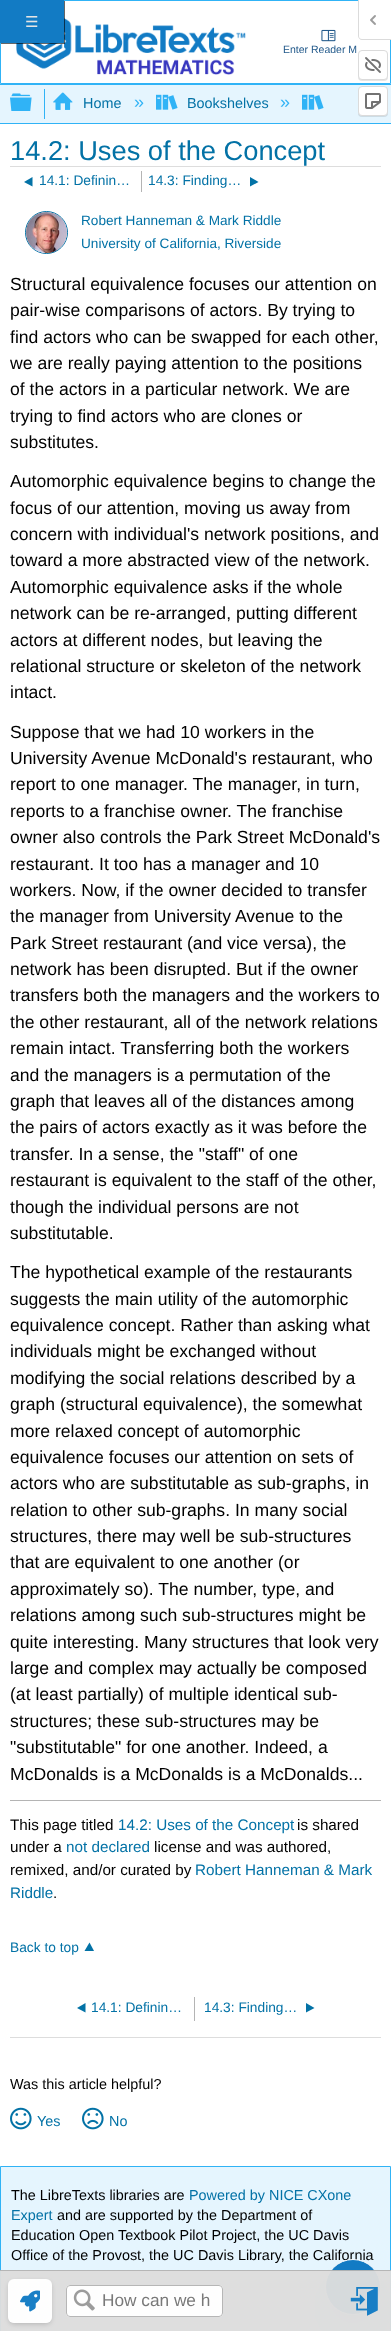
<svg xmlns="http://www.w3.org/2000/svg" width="391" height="2331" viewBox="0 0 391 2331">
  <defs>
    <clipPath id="clip1"><path d="M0 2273H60V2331H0ZM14 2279H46C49.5 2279 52 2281.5 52 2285V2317C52 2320.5 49.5 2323 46 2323H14C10.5 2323 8 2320.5 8 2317V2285C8 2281.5 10.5 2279 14 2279Z" clip-rule="evenodd"/></clipPath>
  </defs>
  <rect width="100%" height="100%" fill="#fff"/>
  <path d="M0.5 0.5h390v83H0.5z" fill="none" stroke="#30b3f6"/>
  <image x="16" y="18" width="230" height="57" href="img/4.png"/>
  <path d="M1 1h64v43H1z" fill="#00000099" filter="blur(0.5px)"/>
  <path d="M0 0h64v43H0z" fill="#127bc4"/>
  <path d="M359 0H391V39H362C360.5 39 359 37.5 359 36Z" fill="#fff"/>
  <path d="M358 0H391V40H362C360 40 358 38 358 36ZM359 0H391V39H362C360 39 359 38 359 36Z" fill="#dbdbdb" fill-rule="evenodd"/>
  <image x="370" y="15" width="6" height="10" href="img/1.png"/>
  <rect x="358" y="51" width="30" height="30" rx="4" fill="#0000001a" filter="blur(0.5px)"/>
  <rect x="358.5" y="50.5" width="29" height="29" rx="3.5" fill="#fff" stroke="#dbdbdb"/>
  <image x="365" y="57" width="16" height="16" href="img/2.png"/>
  <path d="M0 85h391v38H0z" fill="#e5f5fe"/>
  <path d="M0 84h391v1H0z" fill="#30b3f6"/>
  <rect x="358" y="87" width="30" height="30" rx="4" fill="#0000001a" filter="blur(0.5px)"/>
  <rect x="358.5" y="86.5" width="29" height="29" rx="3.5" fill="#fff" stroke="#dbdbdb"/>
  <image x="365" y="93" width="16" height="16" href="img/3.png"/>
  <image x="321" y="29" width="15" height="13" href="img/5.png"/>
  <path d="M0 123h391v1H0z" fill="#30b3f6"/>
  <image x="10" y="93" width="22" height="18" href="img/6.png"/>
  <path d="M44 89h1v30H44z" fill="#30b3f6"/>
  <image x="53" y="92" width="20" height="18" href="img/7.png"/>
  <image x="156" y="94" width="22" height="16" href="img/8.png"/>
  <image x="302" y="94" width="22" height="16" href="img/8.png"/>
  <path d="M10 166h371v1H10z" fill="#ddd"/>
  <path d="M141 171h1v21H141z" fill="#b4b4b4"/>
  <path d="M32.5 177V186.5L24 182Z" fill="#0372a6"/>
  <path d="M250 177V186.5L258.5 182Z" fill="#0372a6"/>
  <circle cx="46.5" cy="232.5" r="21" fill="none" stroke="#0372a6"/>
  <image x="26" y="212" width="41" height="41" href="img/12.png"/>
  <path d="M10 1800h371v1H10z" fill="#b4b4b4"/>
  <path d="M10 2037h371v1H10z" fill="#ddd"/>
  <path d="M84.5 1951H94L89.5 1942.5Z" fill="#0372a6"/>
  <path d="M194 1997h1v24H194z" fill="#b4b4b4"/>
  <path d="M85.5 2003V2012.5L77 2008Z" fill="#0372a6"/>
  <path d="M306 2003V2012.5L314.5 2008Z" fill="#0372a6"/>
  <image x="10" y="2107" width="22" height="23" href="img/13.png"/>
  <image x="82" y="2107" width="22" height="23" href="img/14.png"/>
  <path d="M0.5 2166.5h390v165H0.5z" fill="#e5f5fe" stroke="#30b3f6"/>
  <rect x="331" y="2273" width="44" height="44" rx="22" fill="#0000001a" filter="blur(5px)"/>
  <rect x="330" y="2284" width="46" height="46" rx="23" fill="#0000001a" filter="blur(12.5px)"/>
  <text x="25" y="27" font-family="DejaVu Sans" font-size="15" fill="#e5e5e5">☰</text>
  <text x="283" y="53" font-family="Liberation Sans" font-size="10.5" fill="#235a8b">Enter Reader M</text>
  <text x="83" y="108" font-family="Liberation Sans" font-size="14.4" fill="#0372a6">Home</text>
  <text x="134" y="108" font-family="Liberation Sans" font-size="18" fill="#30b3f6">»</text>
  <text x="187" y="108" font-family="Liberation Sans" font-size="14.4" fill="#0372a6">Bookshelves</text>
  <text x="280" y="108" font-family="Liberation Sans" font-size="18" fill="#30b3f6">»</text>
  <text x="10" y="160" font-family="Liberation Sans" font-size="27.25" fill="#0372a6">14.2: Uses of the Concept</text>
  <g font-family="Liberation Sans" font-size="13.75" fill="#0372a6">
    <text x="39" y="185">14.1: Definin…</text>
    <text x="148" y="185">14.3: Finding…</text>
  </g>
  <g font-family="Liberation Sans" font-size="13.6" fill="#0372a6">
    <text x="81" y="225">Robert Hanneman &amp; Mark Riddle</text>
    <text x="81" y="248">University of California, Riverside</text>
  </g>
  <g font-family="Liberation Sans" font-size="17.6" fill="#000">
    <text x="10" y="290">Structural equivalence focuses our attention on</text>
    <text x="10" y="316">pair-wise comparisons of actors. By trying to</text>
    <text x="10" y="343">find actors who can be swapped for each other,</text>
    <text x="10" y="369">we are really paying attention to the positions</text>
    <text x="10" y="395">of the actors in a particular network. We are</text>
    <text x="10" y="422">trying to find actors who are clones or</text>
    <text x="10" y="448">substitutes.</text>
    <text x="10" y="487">Automorphic equivalence begins to change the</text>
    <text x="10" y="514">focus of our attention, moving us away from</text>
    <text x="10" y="540">concern with individual's network positions, and</text>
    <text x="10" y="566">toward a more abstracted view of the network.</text>
    <text x="10" y="593">Automorphic equivalence asks if the whole</text>
    <text x="10" y="619">network can be re-arranged, putting different</text>
    <text x="10" y="646">actors at different nodes, but leaving the</text>
    <text x="10" y="672">relational structure or skeleton of the network</text>
    <text x="10" y="698">intact.</text>
    <text x="10" y="738">Suppose that we had 10 workers in the</text>
    <text x="10" y="764">University Avenue McDonald's restaurant, who</text>
    <text x="10" y="790">report to one manager. The manager, in turn,</text>
    <text x="10" y="817">reports to a franchise owner. The franchise</text>
    <text x="10" y="843">owner also controls the Park Street McDonald's</text>
    <text x="10" y="870">restaurant. It too has a manager and 10</text>
    <text x="10" y="896">workers. Now, if the owner decided to transfer</text>
    <text x="10" y="922">the manager from University Avenue to the</text>
    <text x="10" y="949">Park Street restaurant (and vice versa), the</text>
    <text x="10" y="975">network has been disrupted. But if the owner</text>
    <text x="10" y="1001">transfers both the managers and the workers to</text>
    <text x="10" y="1028">the other restaurant, all of the network relations</text>
    <text x="10" y="1054">remain intact. Transferring both the workers</text>
    <text x="10" y="1081">and the managers is a permutation of the</text>
    <text x="10" y="1107">graph that leaves all of the distances among</text>
    <text x="10" y="1133">the pairs of actors exactly as it was before the</text>
    <text x="10" y="1160">transfer. In a sense, the "staff" of one</text>
    <text x="10" y="1186">restaurant is equivalent to the staff of the other,</text>
    <text x="10" y="1213">though the individual persons are not</text>
    <text x="10" y="1239">substitutable.</text>
    <text x="10" y="1278">The hypothetical example of the restaurants</text>
    <text x="10" y="1305">suggests the main utility of the automorphic</text>
    <text x="10" y="1331">equivalence concept. Rather than asking what</text>
    <text x="10" y="1357">individuals might be exchanged without</text>
    <text x="10" y="1384">modifying the social relations described by a</text>
    <text x="10" y="1410">graph (structural equivalence), the somewhat</text>
    <text x="10" y="1437">more relaxed concept of automorphic</text>
    <text x="10" y="1463">equivalence focuses our attention on sets of</text>
    <text x="10" y="1489">actors who are substitutable as sub-graphs, in</text>
    <text x="10" y="1516">relation to other sub-graphs. In many social</text>
    <text x="10" y="1542">structures, there may well be sub-structures</text>
    <text x="10" y="1568">that are equivalent to one another (or</text>
    <text x="10" y="1595">approximately so). The number, type, and</text>
    <text x="10" y="1621">relations among such sub-structures might be</text>
    <text x="10" y="1648">quite interesting. Many structures that look very</text>
    <text x="10" y="1674">large and complex may actually be composed</text>
    <text x="10" y="1700">(at least partially) of multiple identical sub-</text>
    <text x="10" y="1727">structures; these sub-structures may be</text>
    <text x="10" y="1753">"substitutable" for one another. Indeed, a</text>
    <text x="10" y="1780">McDonalds is a McDonalds is a McDonalds...</text>
  </g>
  <text x="10" y="1830" font-family="Liberation Sans" font-size="15.25" fill="#000">This page titled</text>
  <text x="118" y="1830" font-family="Liberation Sans" font-size="15.25" fill="#0372a6">14.2: Uses of the Concept</text>
  <g font-family="Liberation Sans" font-size="15.25" fill="#000">
    <text x="297" y="1830">is shared</text>
    <text x="10" y="1852">under a</text>
  </g>
  <text x="66" y="1852" font-family="Liberation Sans" font-size="15.25" fill="#0372a6">not declared</text>
  <g font-family="Liberation Sans" font-size="15.25" fill="#000">
    <text x="154" y="1852">license and was authored,</text>
    <text x="10" y="1875">remixed, and/or curated by</text>
  </g>
  <g font-family="Liberation Sans" font-size="15.25" fill="#0372a6">
    <text x="195" y="1875">Robert Hanneman &amp; Mark</text>
    <text x="10" y="1898">Riddle</text>
  </g>
  <text x="53" y="1898" font-family="Liberation Sans" font-size="15.25" fill="#000">.</text>
  <g font-family="Liberation Sans" font-size="13.75" fill="#0372a6">
    <text x="10" y="1952">Back to top</text>
    <text x="91" y="2012">14.1: Definin…</text>
    <text x="204" y="2012">14.3: Finding…</text>
  </g>
  <text x="10" y="2089" font-family="Liberation Sans" font-size="14.4" fill="#000">Was this article helpful?</text>
  <g font-family="Liberation Sans" font-size="14.4" fill="#0372a6">
    <text x="37" y="2126">Yes</text>
    <text x="109" y="2126">No</text>
  </g>
  <text x="11" y="2200" font-family="Liberation Sans" font-size="14.4" fill="#000">The LibreTexts libraries are</text>
  <g font-family="Liberation Sans" font-size="14.4" fill="#0372a6">
    <text x="189" y="2200">Powered by NICE CXone</text>
    <text x="11" y="2220">Expert</text>
  </g>
  <g font-family="Liberation Sans" font-size="14.4" fill="#000">
    <text x="57" y="2220">and are supported by the Department of</text>
    <text x="11" y="2240">Education Open Textbook Pilot Project, the UC Davis</text>
    <text x="11" y="2260">Office of the Provost, the UC Davis Library, the California</text>
  </g>
  <circle cx="353" cy="2287" r="27.5" fill="#127bc4" stroke="#fff"/>
  <path d="M0 2271h391v60H0z" fill="#ddddddf7"/>
  <rect x="66" y="2285" width="157" height="32" rx="4" fill="#fffffff7"/>
  <rect x="66.5" y="2285.5" width="156" height="31" rx="3.5" fill="none" stroke="#b4b4b4f7"/>
  <image x="73" y="2289" width="22" height="22" href="img/10.png"/>
  <image x="350" y="2287" width="28" height="29" href="img/11.png"/>
  <text x="102" y="2306" font-family="Liberation Sans" font-size="17.25" fill="#797979">How can we h</text>
  <g clip-path="url(#clip1)">
    <rect x="9" y="2282" width="42" height="42" rx="5" fill="#00000030" filter="blur(2.5px)"/>
  </g>
  <rect x="8" y="2279" width="44" height="44" rx="6" fill="#fffffff7"/>
  <image x="20" y="2290" width="20" height="22" href="img/9.png"/>
  <path d="M0 2270h391v1H0z" fill="#b4b4b4f7"/>
</svg>
